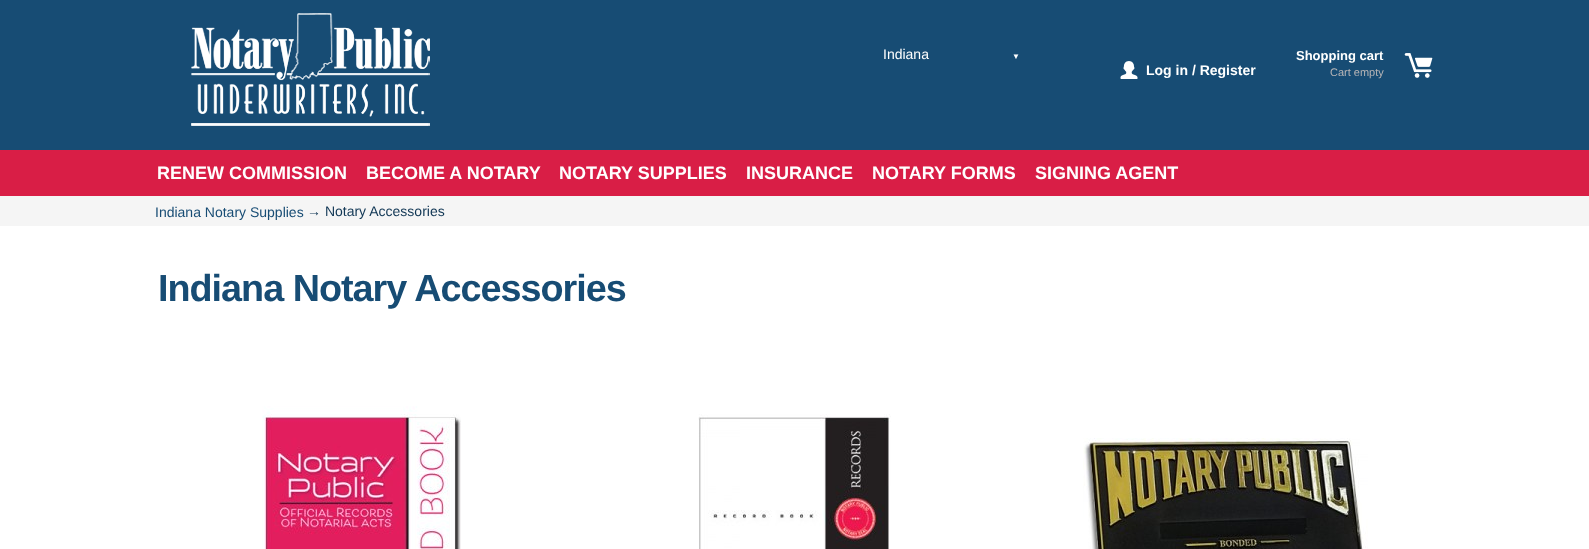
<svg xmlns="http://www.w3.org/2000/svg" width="1589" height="549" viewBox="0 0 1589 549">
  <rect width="100%" height="100%" fill="#174c74"/>
  <path d="M0 226h1589v323H0z" fill="#fff"/>
  <image x="191" y="13" width="239" height="113" href="img/1.png"/>
  <image x="1120" y="61" width="18" height="18" href="img/2.png"/>
  <image x="1404" y="53" width="29" height="25" href="img/3.png"/>
  <path d="M0 150h1589v46H0z" fill="#d91e46"/>
  <path d="M0 196h1589v30H0z" fill="#f5f5f5"/>
  <image x="262" y="406" width="199" height="143" href="img/4.png"/>
  <image x="698" y="414" width="193" height="135" href="img/5.png"/>
  <image x="1083" y="438" width="285" height="111" href="img/6.png"/>
  <text x="883" y="59" font-family="Liberation Sans" font-size="14" fill="#fff">Indiana</text>
  <text x="1012" y="59" font-family="Liberation Sans" font-size="8" fill="#fff">▼</text>
  <text x="1146" y="75" font-family="Liberation Sans" font-size="14" font-weight="bold" fill="#fff">Log in / Register</text>
  <text x="1296" y="60" font-family="Liberation Sans" font-size="13" font-weight="bold" fill="#fff">Shopping cart</text>
  <text x="1330" y="76" font-family="Liberation Sans" font-size="11" fill="#b9b6b7">Cart empty</text>
  <g font-family="Liberation Sans" font-size="18" font-weight="bold" fill="#fff">
    <text x="157" y="179">RENEW COMMISSION</text>
    <text x="366" y="179">BECOME A NOTARY</text>
    <text x="559" y="179">NOTARY SUPPLIES</text>
    <text x="746" y="179">INSURANCE</text>
    <text x="872" y="179">NOTARY FORMS</text>
    <text x="1035" y="179">SIGNING AGENT</text>
  </g>
  <text x="155" y="217" font-family="Liberation Sans" font-size="14" fill="#174c74">Indiana Notary Supplies</text>
  <text x="307" y="216" font-family="Liberation Sans" font-size="14" fill="#103654">→ Notary Accessories</text>
  <text x="158" y="301" font-family="Liberation Sans" font-size="37.75" font-weight="bold" letter-spacing="-1" fill="#174c74">Indiana Notary Accessories</text>
</svg>
